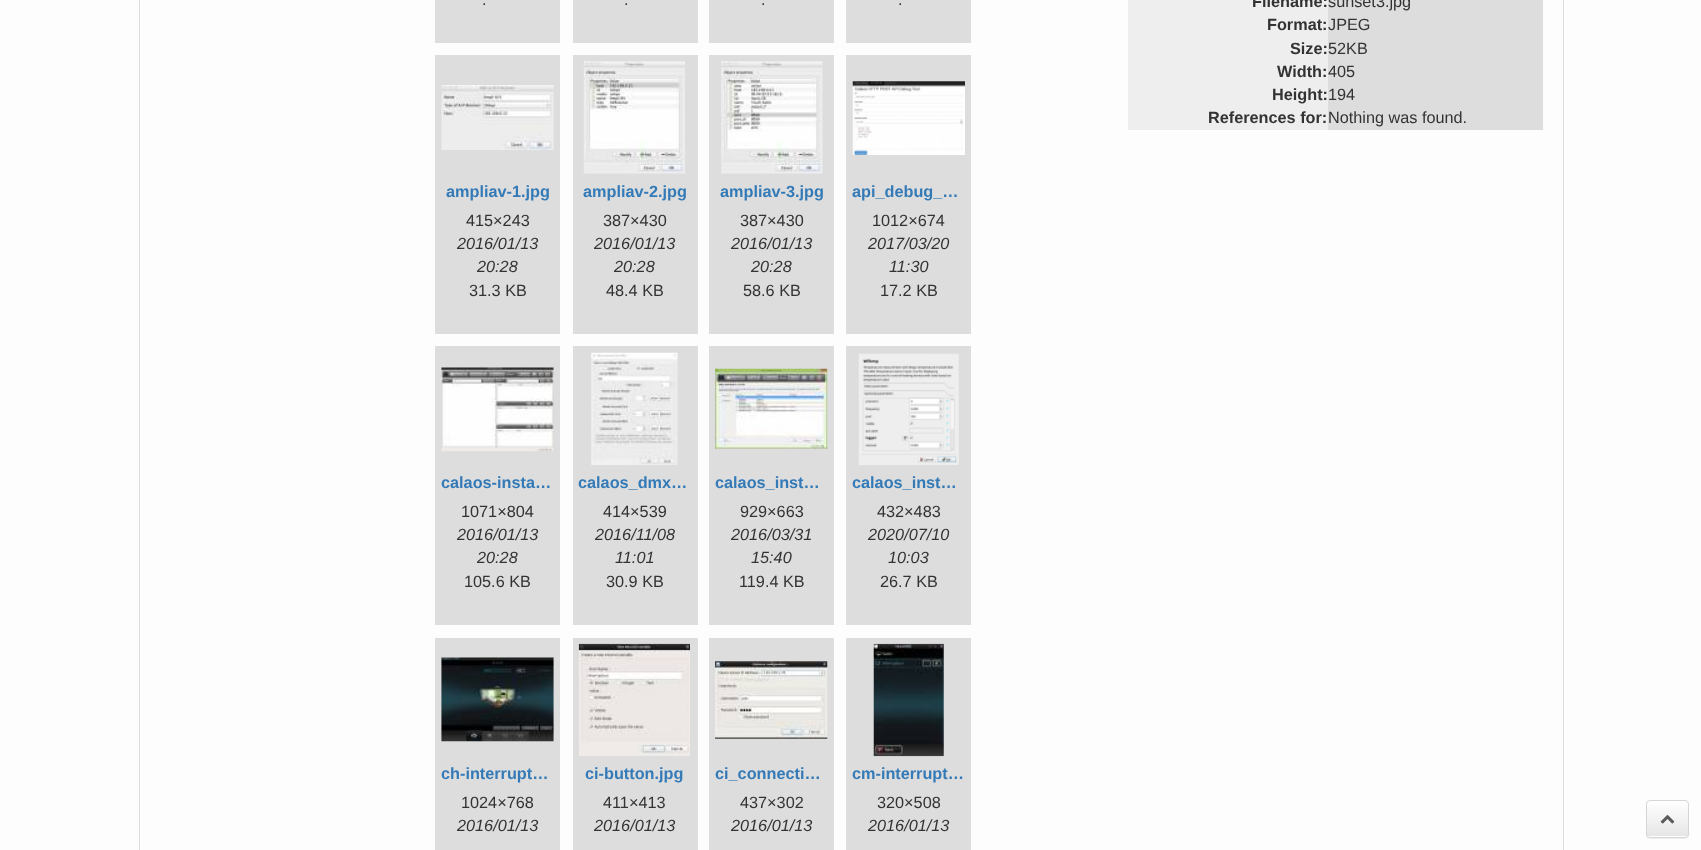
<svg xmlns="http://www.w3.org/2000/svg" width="1701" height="850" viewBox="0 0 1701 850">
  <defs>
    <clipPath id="clip1"><rect x="1646" y="800" width="43" height="38" rx="4"/></clipPath>
    <linearGradient id="g1" gradientUnits="userSpaceOnUse" x1="1668" y1="801" x2="1668" y2="836"><stop offset="0" stop-color="#fff"/><stop offset="1" stop-color="#e6e6e6"/></linearGradient>
  </defs>
  <rect width="100%" height="100%" fill="#fdfdfd"/>
  <path d="M139.5 -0.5h1424v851H139.5z" fill="none" stroke="#ddd"/>
  <path d="M435 0h125v43H435z" fill="#ddd"/>
  <path d="M573 0h125v43H573z" fill="#ddd"/>
  <path d="M709 0h125v43H709z" fill="#ddd"/>
  <path d="M846 0h125v43H846z" fill="#ddd"/>
  <path d="M435 55h125v279H435z" fill="#ddd"/>
  <image x="441" y="85" width="113" height="65" href="img/1.png"/>
  <path d="M573 55h125v279H573z" fill="#ddd"/>
  <image x="583" y="61" width="102" height="113" href="img/2.png"/>
  <path d="M709 55h125v279H709z" fill="#ddd"/>
  <image x="721" y="61" width="102" height="113" href="img/3.png"/>
  <path d="M846 55h125v279H846z" fill="#ddd"/>
  <image x="852" y="81" width="113" height="74" href="img/4.png"/>
  <path d="M435 346h125v279H435z" fill="#ddd"/>
  <image x="441" y="367" width="113" height="85" href="img/5.png"/>
  <path d="M573 346h125v279H573z" fill="#ddd"/>
  <image x="591" y="352" width="87" height="113" href="img/6.png"/>
  <path d="M709 346h125v279H709z" fill="#ddd"/>
  <image x="715" y="368" width="113" height="81" href="img/7.png"/>
  <path d="M846 346h125v279H846z" fill="#ddd"/>
  <image x="858" y="353" width="101" height="112" href="img/8.png"/>
  <path d="M435 638h125v212H435z" fill="#ddd"/>
  <image x="441" y="657" width="113" height="85" href="img/9.png"/>
  <path d="M573 638h125v212H573z" fill="#ddd"/>
  <image x="578" y="643" width="112" height="113" href="img/10.png"/>
  <path d="M709 638h125v212H709z" fill="#ddd"/>
  <image x="715" y="661" width="113" height="78" href="img/11.png"/>
  <path d="M846 638h125v212H846z" fill="#ddd"/>
  <image x="873" y="643" width="71" height="114" href="img/12.png"/>
  <path d="M1328 0h215v130H1328z" fill="#ddd"/>
  <rect x="1646" y="801" width="43" height="38" rx="4" fill="#33333312" filter="blur(0.5px)"/>
  <rect x="1646" y="800" width="43" height="38" rx="4" fill="#fff"/>
  <g clip-path="url(#clip1)">
    <path d="M1646 801h43v35H1646z" fill="url(#g1)"/>
  </g>
  <rect x="1646.5" y="800.5" width="42" height="37" rx="3.5" fill="none" stroke="#d6d6d6"/>
  <image x="1660" y="815" width="15" height="9" href="img/13.png"/>
  <g font-family="Liberation Sans" font-size="16.25" fill="#333">
    <text x="482" y="5">.</text>
    <text x="624" y="5">.</text>
    <text x="761" y="5">.</text>
    <text x="898" y="5">.</text>
  </g>
  <text x="446" y="197" font-family="Liberation Sans" font-size="16.25" font-weight="bold" fill="#337ab7">ampliav-1.jpg</text>
  <text x="466" y="226" font-family="Liberation Sans" font-size="16.25" fill="#333">415×243</text>
  <g font-family="Liberation Sans" font-size="16.25" font-style="italic" fill="#333">
    <text x="457" y="249">2016/01/13</text>
    <text x="477" y="272">20:28</text>
  </g>
  <text x="469" y="296" font-family="Liberation Sans" font-size="16.25" fill="#333">31.3 KB</text>
  <text x="583" y="197" font-family="Liberation Sans" font-size="16.25" font-weight="bold" fill="#337ab7">ampliav-2.jpg</text>
  <text x="603" y="226" font-family="Liberation Sans" font-size="16.25" fill="#333">387×430</text>
  <g font-family="Liberation Sans" font-size="16.25" font-style="italic" fill="#333">
    <text x="594" y="249">2016/01/13</text>
    <text x="614" y="272">20:28</text>
  </g>
  <text x="606" y="296" font-family="Liberation Sans" font-size="16.25" fill="#333">48.4 KB</text>
  <text x="720" y="197" font-family="Liberation Sans" font-size="16.25" font-weight="bold" fill="#337ab7">ampliav-3.jpg</text>
  <text x="740" y="226" font-family="Liberation Sans" font-size="16.25" fill="#333">387×430</text>
  <g font-family="Liberation Sans" font-size="16.25" font-style="italic" fill="#333">
    <text x="731" y="249">2016/01/13</text>
    <text x="751" y="272">20:28</text>
  </g>
  <text x="743" y="296" font-family="Liberation Sans" font-size="16.25" fill="#333">58.6 KB</text>
  <text x="852" y="197" font-family="Liberation Sans" font-size="16.25" font-weight="bold" fill="#337ab7">api_debug_…</text>
  <text x="872" y="226" font-family="Liberation Sans" font-size="16.25" fill="#333">1012×674</text>
  <g font-family="Liberation Sans" font-size="16.25" font-style="italic" fill="#333">
    <text x="868" y="249">2017/03/20</text>
    <text x="889" y="272">11:30</text>
  </g>
  <text x="880" y="296" font-family="Liberation Sans" font-size="16.25" fill="#333">17.2 KB</text>
  <text x="441" y="488" font-family="Liberation Sans" font-size="16.25" font-weight="bold" fill="#337ab7">calaos-insta…</text>
  <text x="461" y="517" font-family="Liberation Sans" font-size="16.25" fill="#333">1071×804</text>
  <g font-family="Liberation Sans" font-size="16.25" font-style="italic" fill="#333">
    <text x="457" y="540">2016/01/13</text>
    <text x="477" y="563">20:28</text>
  </g>
  <text x="464" y="587" font-family="Liberation Sans" font-size="16.25" fill="#333">105.6 KB</text>
  <text x="578" y="488" font-family="Liberation Sans" font-size="16.25" font-weight="bold" fill="#337ab7">calaos_dmx…</text>
  <text x="603" y="517" font-family="Liberation Sans" font-size="16.25" fill="#333">414×539</text>
  <g font-family="Liberation Sans" font-size="16.25" font-style="italic" fill="#333">
    <text x="595" y="540">2016/11/08</text>
    <text x="615" y="563">11:01</text>
  </g>
  <text x="606" y="587" font-family="Liberation Sans" font-size="16.25" fill="#333">30.9 KB</text>
  <text x="715" y="488" font-family="Liberation Sans" font-size="16.25" font-weight="bold" fill="#337ab7">calaos_inst…</text>
  <text x="740" y="517" font-family="Liberation Sans" font-size="16.25" fill="#333">929×663</text>
  <g font-family="Liberation Sans" font-size="16.25" font-style="italic" fill="#333">
    <text x="731" y="540">2016/03/31</text>
    <text x="751" y="563">15:40</text>
  </g>
  <text x="739" y="587" font-family="Liberation Sans" font-size="16.25" fill="#333">119.4 KB</text>
  <text x="852" y="488" font-family="Liberation Sans" font-size="16.25" font-weight="bold" fill="#337ab7">calaos_inst…</text>
  <text x="877" y="517" font-family="Liberation Sans" font-size="16.25" fill="#333">432×483</text>
  <g font-family="Liberation Sans" font-size="16.25" font-style="italic" fill="#333">
    <text x="868" y="540">2020/07/10</text>
    <text x="888" y="563">10:03</text>
  </g>
  <text x="880" y="587" font-family="Liberation Sans" font-size="16.25" fill="#333">26.7 KB</text>
  <text x="441" y="779" font-family="Liberation Sans" font-size="16.25" font-weight="bold" fill="#337ab7">ch-interrupt…</text>
  <text x="461" y="808" font-family="Liberation Sans" font-size="16.25" fill="#333">1024×768</text>
  <text x="457" y="831" font-family="Liberation Sans" font-size="16.25" font-style="italic" fill="#333">2016/01/13</text>
  <text x="585" y="779" font-family="Liberation Sans" font-size="16.25" font-weight="bold" fill="#337ab7">ci-button.jpg</text>
  <text x="603" y="808" font-family="Liberation Sans" font-size="16.25" fill="#333">411×413</text>
  <text x="594" y="831" font-family="Liberation Sans" font-size="16.25" font-style="italic" fill="#333">2016/01/13</text>
  <text x="715" y="779" font-family="Liberation Sans" font-size="16.25" font-weight="bold" fill="#337ab7">ci_connecti…</text>
  <text x="740" y="808" font-family="Liberation Sans" font-size="16.25" fill="#333">437×302</text>
  <text x="731" y="831" font-family="Liberation Sans" font-size="16.25" font-style="italic" fill="#333">2016/01/13</text>
  <text x="852" y="779" font-family="Liberation Sans" font-size="16.25" font-weight="bold" fill="#337ab7">cm-interrupt…</text>
  <text x="877" y="808" font-family="Liberation Sans" font-size="16.25" fill="#333">320×508</text>
  <text x="868" y="831" font-family="Liberation Sans" font-size="16.25" font-style="italic" fill="#333">2016/01/13</text>
  <g font-family="Liberation Sans" font-size="16.25" fill="#333">
    <text x="1328" y="7">sunset3.jpg</text>
    <text x="1328" y="30">JPEG</text>
    <text x="1328" y="54">52KB</text>
    <text x="1328" y="77">405</text>
  </g>
  <path d="M1128 0h200v130H1128z" fill="#eee"/>
  <g font-family="Liberation Sans" font-size="16.25" font-weight="bold" fill="#333">
    <text x="1277" y="77">Width:</text>
    <text x="1290" y="54">Size:</text>
    <text x="1267" y="30">Format:</text>
    <text x="1252" y="7">Filename:</text>
    <text x="1272" y="100">Height:</text>
  </g>
  <text x="1328" y="100" font-family="Liberation Sans" font-size="16.25" fill="#333">194</text>
  <text x="1208" y="123" font-family="Liberation Sans" font-size="16.25" font-weight="bold" fill="#333">References for:</text>
  <text x="1328" y="123" font-family="Liberation Sans" font-size="16.25" fill="#333">Nothing was found.</text>
</svg>
